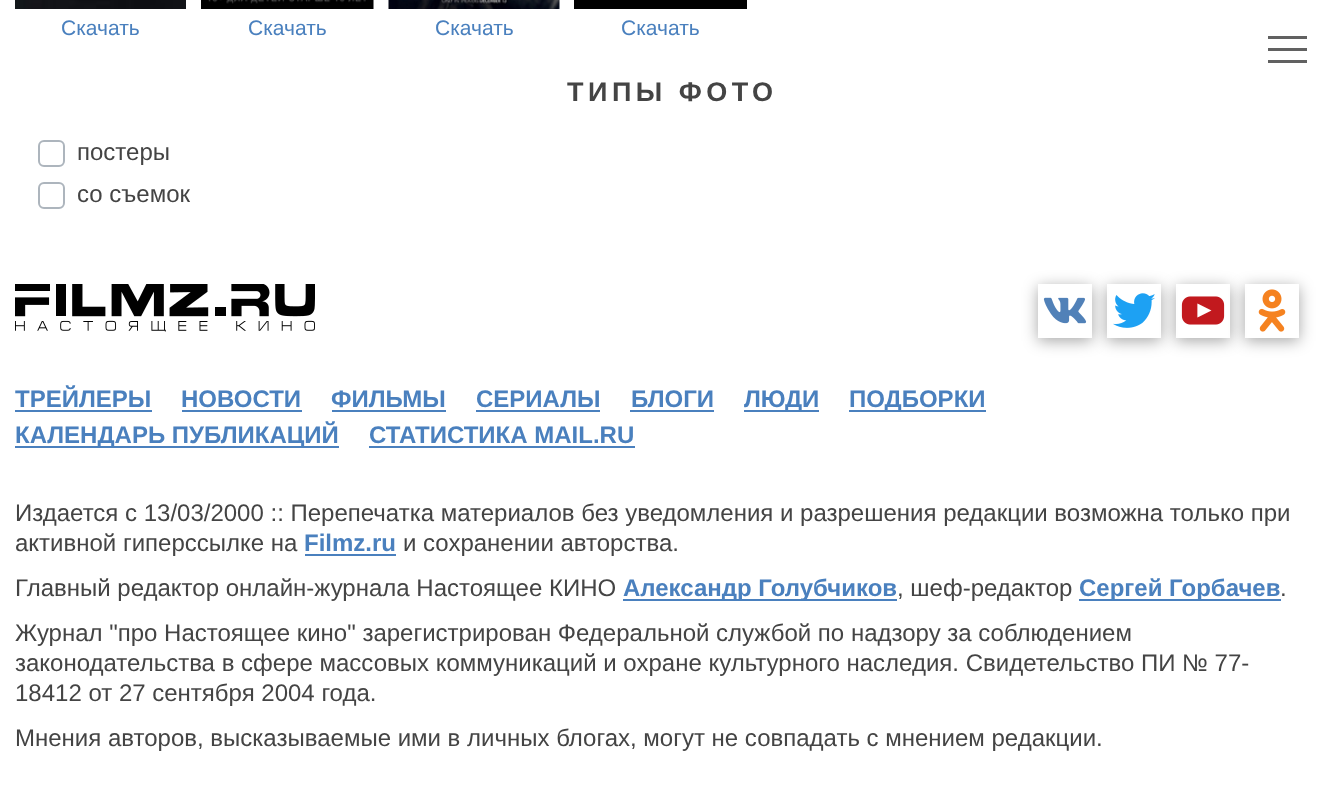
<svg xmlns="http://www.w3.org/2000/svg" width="1321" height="807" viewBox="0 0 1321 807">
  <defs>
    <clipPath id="clip1"><path d="M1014 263H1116V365H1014ZM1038 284H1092V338H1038Z" clip-rule="evenodd"/></clipPath>
    <clipPath id="clip2"><path d="M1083 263H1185V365H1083ZM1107 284H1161V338H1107Z" clip-rule="evenodd"/></clipPath>
    <clipPath id="clip3"><path d="M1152 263H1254V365H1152ZM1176 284H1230V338H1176Z" clip-rule="evenodd"/></clipPath>
    <clipPath id="clip4"><path d="M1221 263H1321V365H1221ZM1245 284H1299V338H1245Z" clip-rule="evenodd"/></clipPath>
  </defs>
  <rect width="100%" height="100%" fill="#fff"/>
  <image x="15" y="0" width="171" height="9" href="img/1.png"/>
  <image x="201" y="0" width="173" height="9" href="img/2.png"/>
  <image x="388" y="0" width="172" height="9" href="img/3.png"/>
  <path d="M574 0h173v9H574z" fill="#010101"/>
  <rect x="39" y="141" width="25" height="25" rx="5" fill="none" stroke="#adb5bd" stroke-width="2"/>
  <rect x="39" y="183" width="25" height="25" rx="5" fill="none" stroke="#adb5bd" stroke-width="2"/>
  <path d="M1268 48h39v3H1268z" fill="#616161"/>
  <path d="M1268 36h39v3H1268z" fill="#616161"/>
  <path d="M1268 60h39v3H1268z" fill="#616161"/>
  <image x="15" y="284" width="300" height="48" href="img/4.png"/>
  <g clip-path="url(#clip1)">
    <path d="M1038 287h54v54H1038z" fill="#00000059" filter="blur(7.5px)"/>
  </g>
  <image x="1043" y="297" width="44" height="27" href="img/5.png"/>
  <g clip-path="url(#clip2)">
    <path d="M1107 287h54v54H1107z" fill="#00000059" filter="blur(7.5px)"/>
  </g>
  <image x="1113" y="293" width="42" height="35" href="img/6.png"/>
  <g clip-path="url(#clip3)">
    <path d="M1176 287h54v54H1176z" fill="#00000059" filter="blur(7.5px)"/>
  </g>
  <image x="1181" y="296" width="44" height="29" href="img/7.png"/>
  <g clip-path="url(#clip4)">
    <path d="M1245 287h54v54H1245z" fill="#00000059" filter="blur(7.5px)"/>
  </g>
  <image x="1258" y="289" width="28" height="43" href="img/8.png"/>
  <path d="M15 410h137v2H15z" fill="#4a80be"/>
  <path d="M182 410h120v2H182z" fill="#4a80be"/>
  <path d="M332 410h114v2H332z" fill="#4a80be"/>
  <path d="M476 410h124v2H476z" fill="#4a80be"/>
  <path d="M630 410h84v2H630z" fill="#4a80be"/>
  <path d="M744 410h75v2H744z" fill="#4a80be"/>
  <path d="M849 410h137v2H849z" fill="#4a80be"/>
  <path d="M15 446h324v2H15z" fill="#4a80be"/>
  <path d="M369 446h266v2H369z" fill="#4a80be"/>
  <path d="M305 554h91v2H305z" fill="#4a80be"/>
  <path d="M623 599h274v2H623z" fill="#4a80be"/>
  <path d="M1079 599h202v2H1079z" fill="#4a80be"/>
  <g font-family="Liberation Sans" font-size="21" fill="#4a80be">
    <text x="61" y="35">Скачать</text>
    <text x="248" y="35">Скачать</text>
    <text x="435" y="35">Скачать</text>
    <text x="621" y="35">Скачать</text>
  </g>
  <text x="567" y="101" font-family="Liberation Sans" font-size="27" font-weight="bold" letter-spacing="4.5" fill="#444">ТИПЫ ФОТО</text>
  <g font-family="Liberation Sans" font-size="24" fill="#444">
    <text x="77" y="160">постеры</text>
    <text x="77" y="202">со съемок</text>
  </g>
  <g font-family="Liberation Sans" font-size="24" font-weight="bold" fill="#4a80be">
    <text x="15" y="407">ТРЕЙЛЕРЫ</text>
    <text x="181" y="407">НОВОСТИ</text>
    <text x="331" y="407">ФИЛЬМЫ</text>
    <text x="476" y="407">СЕРИАЛЫ</text>
    <text x="631" y="407">БЛОГИ</text>
    <text x="744" y="407">ЛЮДИ</text>
    <text x="849" y="407">ПОДБОРКИ</text>
    <text x="15" y="443">КАЛЕНДАРЬ ПУБЛИКАЦИЙ</text>
    <text x="369" y="443">СТАТИСТИКА MAIL.RU</text>
  </g>
  <g font-family="Liberation Sans" font-size="24" fill="#444">
    <text x="15" y="521">Издается с 13/03/2000 :: Перепечатка материалов без уведомления и разрешения редакции возможна только при</text>
    <text x="15" y="551">активной гиперссылке на</text>
  </g>
  <text x="304" y="551" font-family="Liberation Sans" font-size="24" font-weight="bold" fill="#4a80be">Filmz.ru</text>
  <g font-family="Liberation Sans" font-size="24" fill="#444">
    <text x="403" y="551">и сохранении авторства.</text>
    <text x="15" y="596">Главный редактор онлайн-журнала Настоящее КИНО</text>
  </g>
  <text x="623" y="596" font-family="Liberation Sans" font-size="24" font-weight="bold" fill="#4a80be">Александр Голубчиков</text>
  <text x="897" y="596" font-family="Liberation Sans" font-size="24" fill="#444">, шеф-редактор</text>
  <text x="1079" y="596" font-family="Liberation Sans" font-size="24" font-weight="bold" fill="#4a80be">Сергей Горбачев</text>
  <g font-family="Liberation Sans" font-size="24" fill="#444">
    <text x="1280" y="596">.</text>
    <text x="15" y="641">Журнал "про Настоящее кино" зарегистрирован Федеральной службой по надзору за соблюдением</text>
    <text x="15" y="671">законодательства в сфере массовых коммуникаций и охране культурного наследия. Свидетельство ПИ № 77-</text>
    <text x="15" y="701">18412 от 27 сентября 2004 года.</text>
    <text x="15" y="746">Мнения авторов, высказываемые ими в личных блогах, могут не совпадать с мнением редакции.</text>
  </g>
</svg>
